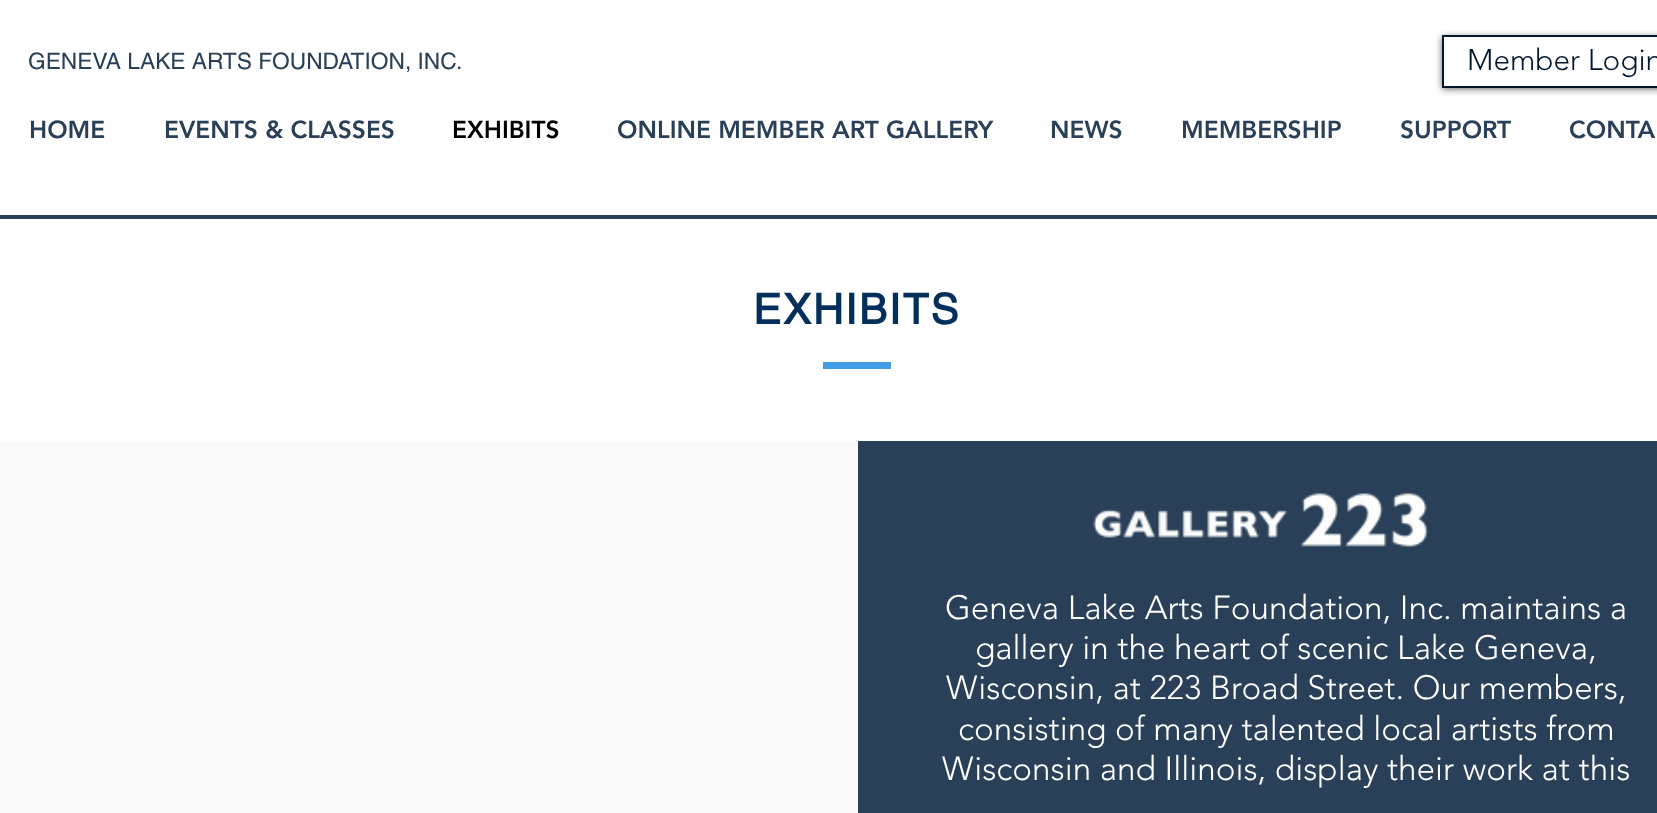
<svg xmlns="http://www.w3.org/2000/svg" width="1657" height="813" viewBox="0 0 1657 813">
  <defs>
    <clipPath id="clip1"><path d="M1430 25H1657V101H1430ZM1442 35H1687V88H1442Z" clip-rule="evenodd"/></clipPath>
  </defs>
  <rect width="100%" height="100%" fill="#fff"/>
  <g clip-path="url(#clip1)">
    <path d="M1442 37h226v52H1442z" fill="#00000099" filter="blur(3.5px)"/>
  </g>
  <path d="M1443 36h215v51H1443z" fill="none" stroke="#02172e" stroke-width="2"/>
  <path d="M0 215h1657v4H0z" fill="#2a4058"/>
  <path d="M823 362h68v7H823z" fill="#439de6"/>
  <path d="M0 441h858v372H0z" fill="#fafafa"/>
  <path d="M858 441h799v372H858z" fill="#2a4058"/>
  <image x="1093" y="493" width="335" height="55" href="img/1.png"/>
  <text x="28" y="69" font-family="helvetica" font-size="22.75" fill="#2a4058">GENEVA LAKE ARTS FOUNDATION, INC.</text>
  <text x="1467" y="70" font-family="'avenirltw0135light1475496'" font-size="29.75" font-weight="300" fill="#02172e">Member Login</text>
  <g font-family="'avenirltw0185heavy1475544'" font-size="24.5" font-weight="900" fill="#2a4058">
    <text x="29" y="138">HOME</text>
    <text x="164" y="138">EVENTS &amp; CLASSES</text>
  </g>
  <text x="452" y="138" font-family="'avenirltw0185heavy1475544'" font-size="24.5" font-weight="900" fill="#000">EXHIBITS</text>
  <g font-family="'avenirltw0185heavy1475544'" font-size="24.5" font-weight="900" fill="#2a4058">
    <text x="617" y="138">ONLINE MEMBER ART GALLERY</text>
    <text x="1050" y="138">NEWS</text>
    <text x="1181" y="138">MEMBERSHIP</text>
    <text x="1400" y="138">SUPPORT</text>
    <text x="1569" y="138">CONTA</text>
  </g>
  <text x="753" y="324" font-family="helvetica" font-size="42" font-weight="bold" letter-spacing="2" fill="#032f5c">EXHIBITS</text>
  <g font-family="'avenirltw0135light1475496'" font-size="33.25" font-weight="300" fill="#fff">
    <text x="945" y="619">Geneva Lake Arts Foundation, Inc. maintains a</text>
    <text x="975" y="659">gallery in the heart of scenic Lake Geneva,</text>
    <text x="946" y="699">Wisconsin, at 223 Broad Street. Our members,</text>
    <text x="958" y="740">consisting of many talented local artists from</text>
    <text x="942" y="780">Wisconsin and Illinois, display their work at this</text>
  </g>
</svg>
